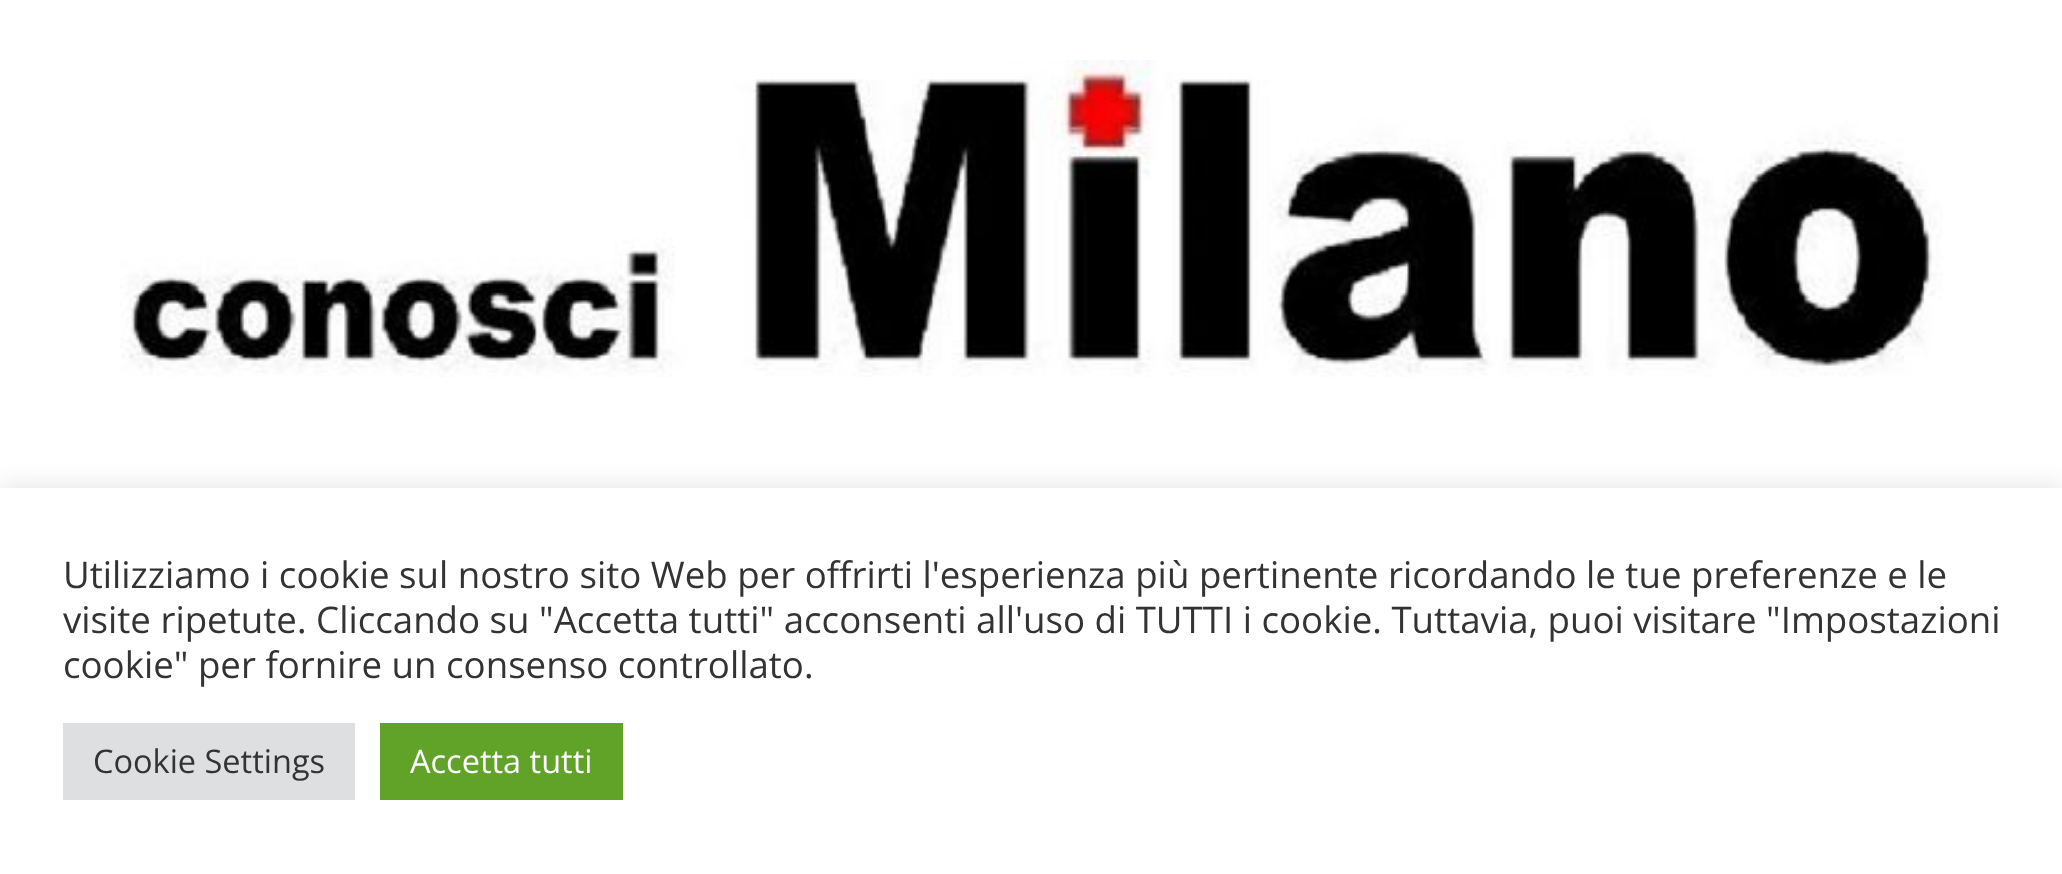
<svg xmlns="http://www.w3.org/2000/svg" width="2062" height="874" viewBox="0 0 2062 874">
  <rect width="100%" height="100%" fill="#fff"/>
  <image x="120" y="60" width="1823" height="317" href="img/1.png"/>
  <path d="M0 485h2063v388H0z" fill="#acabab4d" filter="blur(12.5px)"/>
  <path d="M0 488h2062v386H0z" fill="#fff"/>
  <path d="M63 723h292v77H63z" fill="#dedfe0"/>
  <path d="M380 723h243v77H380z" fill="#61a229"/>
  <g font-family="Open Sans" font-size="36.67" fill="#333">
    <text x="63" y="588">Utilizziamo i cookie sul nostro sito Web per offrirti l'esperienza più pertinente ricordando le tue preferenze e le</text>
    <text x="63" y="633">visite ripetute. Cliccando su "Accetta tutti" acconsenti all'uso di TUTTI i cookie. Tuttavia, puoi visitare "Impostazioni</text>
    <text x="63" y="678">cookie" per fornire un consenso controllato.</text>
  </g>
  <text x="93" y="773" font-family="Open Sans" font-size="32.5" fill="#333">Cookie Settings</text>
  <text x="410" y="773" font-family="Open Sans" font-size="32.5" fill="#fff">Accetta tutti</text>
</svg>
